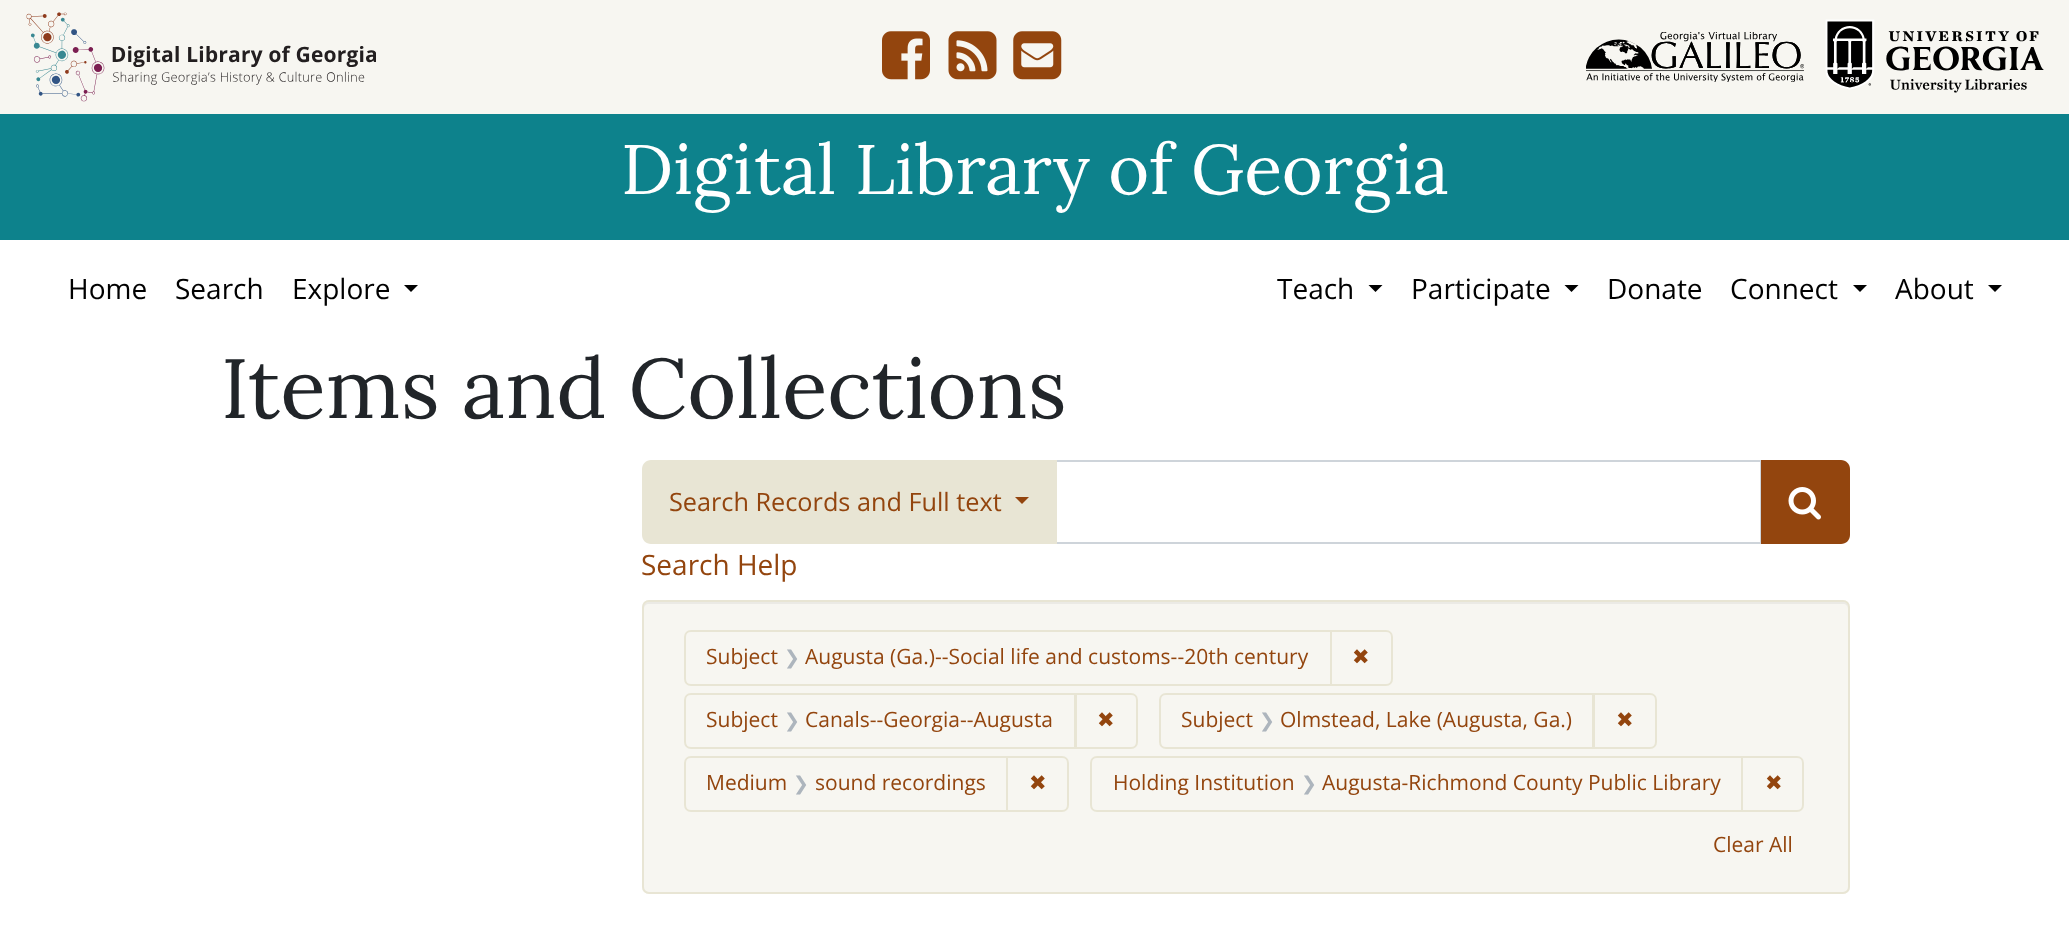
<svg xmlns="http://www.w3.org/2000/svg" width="2069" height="933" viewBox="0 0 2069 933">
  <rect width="100%" height="100%" fill="#fff"/>
  <path d="M0 0h2069v114H0z" fill="#f7f6f1"/>
  <image x="26" y="12" width="350" height="90" href="img/1.png"/>
  <image x="882" y="31" width="48" height="49" href="img/2.png"/>
  <image x="948" y="31" width="49" height="49" href="img/3.png"/>
  <image x="1013" y="31" width="49" height="49" href="img/4.png"/>
  <image x="1586" y="32" width="218" height="50" href="img/5.png"/>
  <image x="1825" y="19" width="219" height="74" href="img/6.png"/>
  <path d="M0 114h2069v126H0z" fill="#0d828c"/>
  <path d="M404 285H418L411 292Z" fill="#000"/>
  <path d="M1368.5 285H1382.5L1375.5 292Z" fill="#000"/>
  <path d="M1564.5 285H1578.5L1571.5 292Z" fill="#000"/>
  <path d="M1853 285H1867L1860 292Z" fill="#000"/>
  <path d="M1988 285H2002L1995 292Z" fill="#000"/>
  <path d="M1056 461h705v82H1056z" fill="none" stroke="#ced4da" stroke-width="2"/>
  <path d="M651 460H1057V544H651C646 544 642 540 642 535V469C642 464 646 460 651 460Z" fill="#e8e5d4"/>
  <path d="M1015 497H1029L1022 504Z" fill="#93450e"/>
  <path d="M1761 460H1841C1846 460 1850 464 1850 469V535C1850 540 1846 544 1841 544H1761Z" fill="#93450e"/>
  <image x="1788" y="487" width="33" height="33" href="img/7.png"/>
  <rect x="642" y="600" width="1208" height="294" rx="7" fill="#f7f6f1"/>
  <path d="M649 604H1843C1846 604 1848 606 1848 609V607C1848 604 1846 602 1843 602H649C646 602 644 604 644 607V609C644 606 646 604 649 604Z" fill="#ebeae5"/>
  <rect x="643" y="601" width="1206" height="292" rx="6" fill="none" stroke="#e8e5d4" stroke-width="2"/>
  <path d="M691 631H1331V685H691C687.5 685 685 682.5 685 679V637C685 633.5 687.5 631 691 631Z" fill="none" stroke="#e8e5d4" stroke-width="2"/>
  <path d="M1331 631H1386C1389.5 631 1392 633.5 1392 637V679C1392 682.5 1389.5 685 1386 685H1331Z" fill="none" stroke="#e8e5d4" stroke-width="2"/>
  <path d="M691 694H1075V748H691C687.5 748 685 745.5 685 742V700C685 696.5 687.5 694 691 694Z" fill="none" stroke="#e8e5d4" stroke-width="2"/>
  <path d="M1076 694H1131C1134.5 694 1137 696.5 1137 700V742C1137 745.5 1134.5 748 1131 748H1076Z" fill="none" stroke="#e8e5d4" stroke-width="2"/>
  <path d="M1166 694H1593V748H1166C1162.5 748 1160 745.5 1160 742V700C1160 696.5 1162.5 694 1166 694Z" fill="none" stroke="#e8e5d4" stroke-width="2"/>
  <path d="M1594 694H1650C1653.5 694 1656 696.5 1656 700V742C1656 745.5 1653.5 748 1650 748H1594Z" fill="none" stroke="#e8e5d4" stroke-width="2"/>
  <path d="M691 757H1007V811H691C687.5 811 685 808.5 685 805V763C685 759.5 687.5 757 691 757Z" fill="none" stroke="#e8e5d4" stroke-width="2"/>
  <path d="M1007 757H1062C1065.5 757 1068 759.5 1068 763V805C1068 808.5 1065.5 811 1062 811H1007Z" fill="none" stroke="#e8e5d4" stroke-width="2"/>
  <path d="M1097 757H1742V811H1097C1093.5 811 1091 808.5 1091 805V763C1091 759.5 1093.5 757 1097 757Z" fill="none" stroke="#e8e5d4" stroke-width="2"/>
  <path d="M1742 757H1797C1800.5 757 1803 759.5 1803 763V805C1803 808.5 1800.5 811 1797 811H1742Z" fill="none" stroke="#e8e5d4" stroke-width="2"/>
  <text x="621" y="194" font-family="Lora" font-size="70" fill="#fff">Digital Library of Georgia</text>
  <g font-family="Open Sans" font-size="28" fill="#000">
    <text x="68" y="299">Home</text>
    <text x="175" y="299">Search</text>
    <text x="292" y="299">Explore</text>
    <text x="1277" y="299">Teach</text>
    <text x="1411" y="299">Participate</text>
    <text x="1607" y="299">Donate</text>
    <text x="1730" y="299">Connect</text>
    <text x="1895" y="299">About</text>
  </g>
  <text x="221" y="418" font-family="Lora" font-size="84" fill="#212529">Items and Collections</text>
  <text x="669" y="511" font-family="Open Sans" font-size="25.25" fill="#93450e">Search Records and Full text</text>
  <text x="641" y="575" font-family="Open Sans" font-size="28" fill="#93450e">Search Help</text>
  <text x="706" y="664" font-family="Open Sans" font-size="21" fill="#93450e">Subject</text>
  <text x="784" y="664" font-family="DejaVu Sans" font-size="19" fill="#adb5bd">❯</text>
  <text x="805" y="664" font-family="Open Sans" font-size="21" fill="#93450e">Augusta (Ga.)--Social life and customs--20th century</text>
  <text x="1352" y="664" font-family="DejaVu Sans" font-size="21" fill="#93450e">✖</text>
  <text x="706" y="727" font-family="Open Sans" font-size="21" fill="#93450e">Subject</text>
  <text x="784" y="727" font-family="DejaVu Sans" font-size="19" fill="#adb5bd">❯</text>
  <text x="805" y="727" font-family="Open Sans" font-size="21" fill="#93450e">Canals--Georgia--Augusta</text>
  <text x="1097" y="727" font-family="DejaVu Sans" font-size="21" fill="#93450e">✖</text>
  <text x="1181" y="727" font-family="Open Sans" font-size="21" fill="#93450e">Subject</text>
  <text x="1259" y="727" font-family="DejaVu Sans" font-size="19" fill="#adb5bd">❯</text>
  <text x="1280" y="727" font-family="Open Sans" font-size="21" fill="#93450e">Olmstead, Lake (Augusta, Ga.)</text>
  <text x="1616" y="727" font-family="DejaVu Sans" font-size="21" fill="#93450e">✖</text>
  <text x="706" y="790" font-family="Open Sans" font-size="21" fill="#93450e">Medium</text>
  <text x="793" y="790" font-family="DejaVu Sans" font-size="19" fill="#adb5bd">❯</text>
  <text x="815" y="790" font-family="Open Sans" font-size="21" fill="#93450e">sound recordings</text>
  <text x="1029" y="790" font-family="DejaVu Sans" font-size="21" fill="#93450e">✖</text>
  <text x="1113" y="790" font-family="Open Sans" font-size="21" fill="#93450e">Holding Institution</text>
  <text x="1301" y="790" font-family="DejaVu Sans" font-size="19" fill="#adb5bd">❯</text>
  <text x="1322" y="790" font-family="Open Sans" font-size="21" fill="#93450e">Augusta-Richmond County Public Library</text>
  <text x="1765" y="790" font-family="DejaVu Sans" font-size="21" fill="#93450e">✖</text>
  <text x="1713" y="852" font-family="Open Sans" font-size="21" fill="#93450e">Clear All</text>
</svg>
